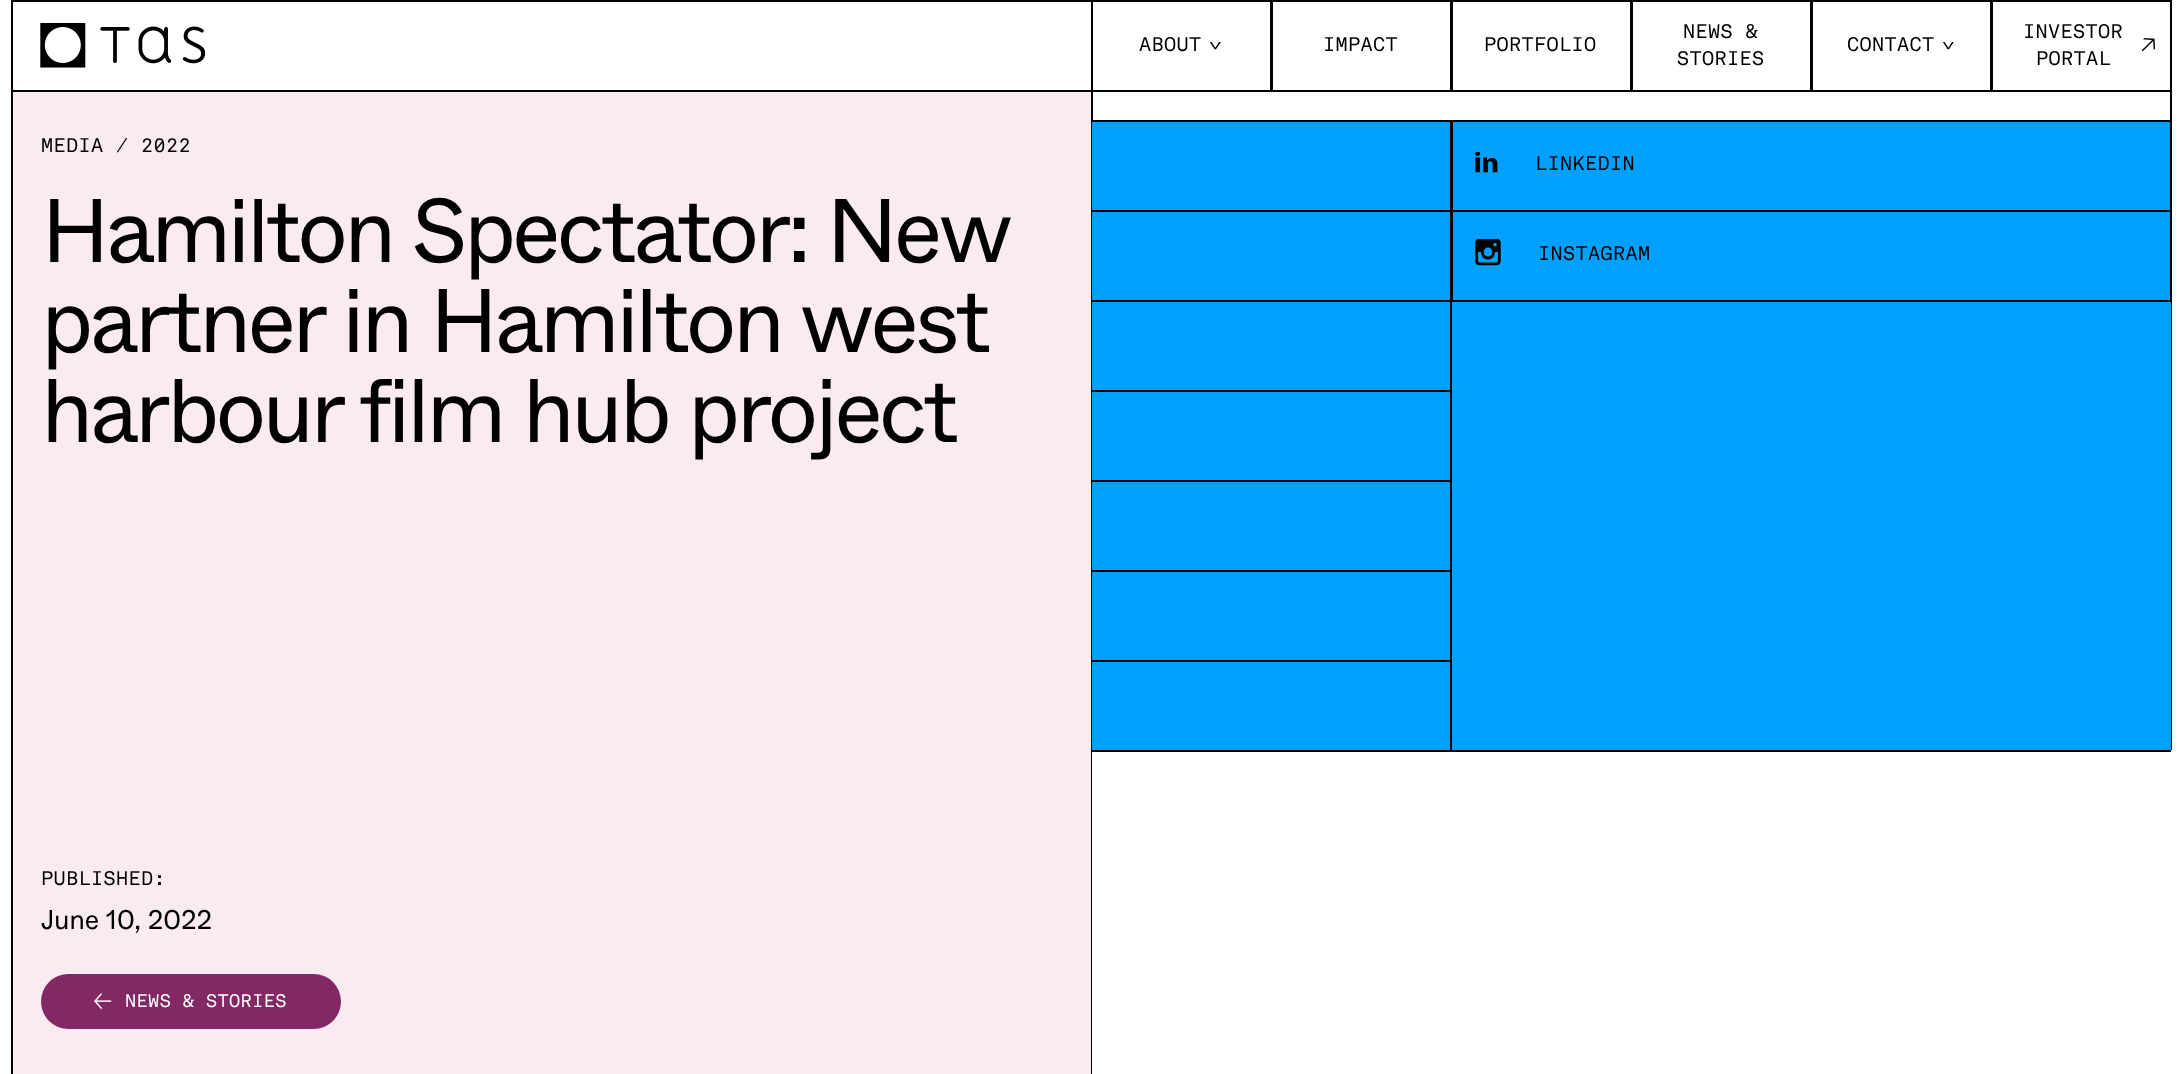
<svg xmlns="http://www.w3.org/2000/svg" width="2180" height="1074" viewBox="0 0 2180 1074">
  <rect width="100%" height="100%" fill="#fff"/>
  <path d="M2171 90h1v660H2171z" fill="#000"/>
  <path d="M11 750V752H2171V122H2170V750Z" fill="#000"/>
  <path d="M1092 122h1079v628H1092z" fill="#00a0ff"/>
  <path d="M1451 210V212H2171V122H2170V210Z" fill="#000"/>
  <path d="M1451 120h2v90H1451z" fill="#000"/>
  <path d="M1091 120V122H2171V92H2170V120Z" fill="#000"/>
  <path d="M1091 90h2v30H1091z" fill="#000"/>
  <path d="M11 90h2v984H11z" fill="#000"/>
  <path d="M11 90V92H2171V2H2170V90Z" fill="#000"/>
  <path d="M11 0h2v90H11z" fill="#000"/>
  <path d="M11 0h1080v2H11z" fill="#000"/>
  <image x="40" y="23" width="166" height="45" href="img/1.png"/>
  <path d="M1091 90V92H1271V2H1270V90Z" fill="#000"/>
  <path d="M1271 90V92H1451V2H1450V90Z" fill="#000"/>
  <path d="M1450 0h1v2H1450z" fill="#000"/>
  <path d="M1272 0h1v90H1272z" fill="#000"/>
  <path d="M1271 0h180v2H1271z" fill="#000"/>
  <path d="M1270 0h2v90H1270z" fill="#000"/>
  <path d="M1091 0h2v90H1091z" fill="#000"/>
  <path d="M1091 0h180v2H1091z" fill="#000"/>
  <path d="M1451 90V92H1631V2H1630V90Z" fill="#000"/>
  <path d="M1630 0h1v2H1630z" fill="#000"/>
  <path d="M1451 0h2v90H1451z" fill="#000"/>
  <path d="M1451 0h180v2H1451z" fill="#000"/>
  <path d="M1631 90V92H1811V2H1810V90Z" fill="#000"/>
  <path d="M1810 0h1v2H1810z" fill="#000"/>
  <path d="M1631 0h2v90H1631z" fill="#000"/>
  <path d="M1631 0h180v2H1631z" fill="#000"/>
  <path d="M1811 90V92H1991V2H1990V90Z" fill="#000"/>
  <path d="M2170 0h2v90H2170z" fill="#000"/>
  <path d="M1992 0h1v90H1992z" fill="#000"/>
  <path d="M1991 0h180v2H1991z" fill="#000"/>
  <path d="M1990 0h2v90H1990z" fill="#000"/>
  <path d="M1811 0h2v90H1811z" fill="#000"/>
  <path d="M1811 0h180v2H1811z" fill="#000"/>
  <image x="2141" y="38" width="15" height="14" href="img/2.png"/>
  <path d="M732 750V752H1451V122H1450V750Z" fill="#000"/>
  <path d="M732 210V212H1451V122H1450V210Z" fill="#000"/>
  <path d="M732 300V302H1451V212H1450V300Z" fill="#000"/>
  <path d="M732 390V392H1451V302H1450V390Z" fill="#000"/>
  <path d="M732 480V482H1451V392H1450V480Z" fill="#000"/>
  <path d="M732 570V572H1451V482H1450V570Z" fill="#000"/>
  <path d="M732 660V662H1451V572H1450V660Z" fill="#000"/>
  <path d="M1091 122h1v952H1091z" fill="#000"/>
  <path d="M13 92h1078v982H13z" fill="#faebf0"/>
  <rect x="41" y="974" width="300" height="55" rx="27.5" fill="#822864"/>
  <image x="94" y="993" width="18" height="16" href="img/3.png"/>
  <path d="M1451 302h1v448H1451z" fill="#000"/>
  <image x="1475" y="152" width="23" height="21" href="img/4.png"/>
  <path d="M1451 300V302H2171V212H2170V300Z" fill="#000"/>
  <path d="M1451 210h2v90H1451z" fill="#000"/>
  <image x="1475" y="239" width="26" height="27" href="img/5.png"/>
  <g font-family="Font" font-size="19.5" letter-spacing="0.4" fill="#000">
    <text x="1139" y="51">ABOUT</text>
    <text x="1209" y="39" transform="rotate(90 1209 39)">&gt;</text>
    <text x="1323" y="51">IMPACT</text>
    <text x="1484" y="51">PORTFOLIO</text>
    <text x="1683" y="38">NEWS &amp;</text>
    <text x="1677" y="65">STORIES</text>
    <text x="1847" y="51">CONTACT</text>
    <text x="1942" y="39" transform="rotate(90 1942 39)">&gt;</text>
    <text x="2023" y="38">INVESTOR</text>
    <text x="2036" y="65">PORTAL</text>
    <text x="41" y="152">MEDIA / 2022</text>
  </g>
  <g font-family="Font" font-size="90" font-weight="300" letter-spacing="-3.6" fill="#000">
    <text x="41" y="262" word-spacing="-1">Hamilton Spectator: New</text>
    <text x="41" y="352">partner in Hamilton west</text>
    <text x="41" y="442">harbour film hub project</text>
  </g>
  <text x="41" y="885" font-family="Font" font-size="19.5" letter-spacing="0.4" fill="#000">PUBLISHED:</text>
  <text x="41" y="929" font-family="Font" font-size="27" font-weight="300" letter-spacing="-0.25" fill="#000">June 10, 2022</text>
  <text x="125" y="1007" font-family="Font" font-size="18" letter-spacing="0.4" fill="#fff">NEWS &amp; STORIES</text>
  <g font-family="Font" font-size="19.5" letter-spacing="0.4" fill="#000">
    <text x="1535" y="170">LINKEDIN</text>
    <text x="1538" y="260">INSTAGRAM</text>
  </g>
</svg>
